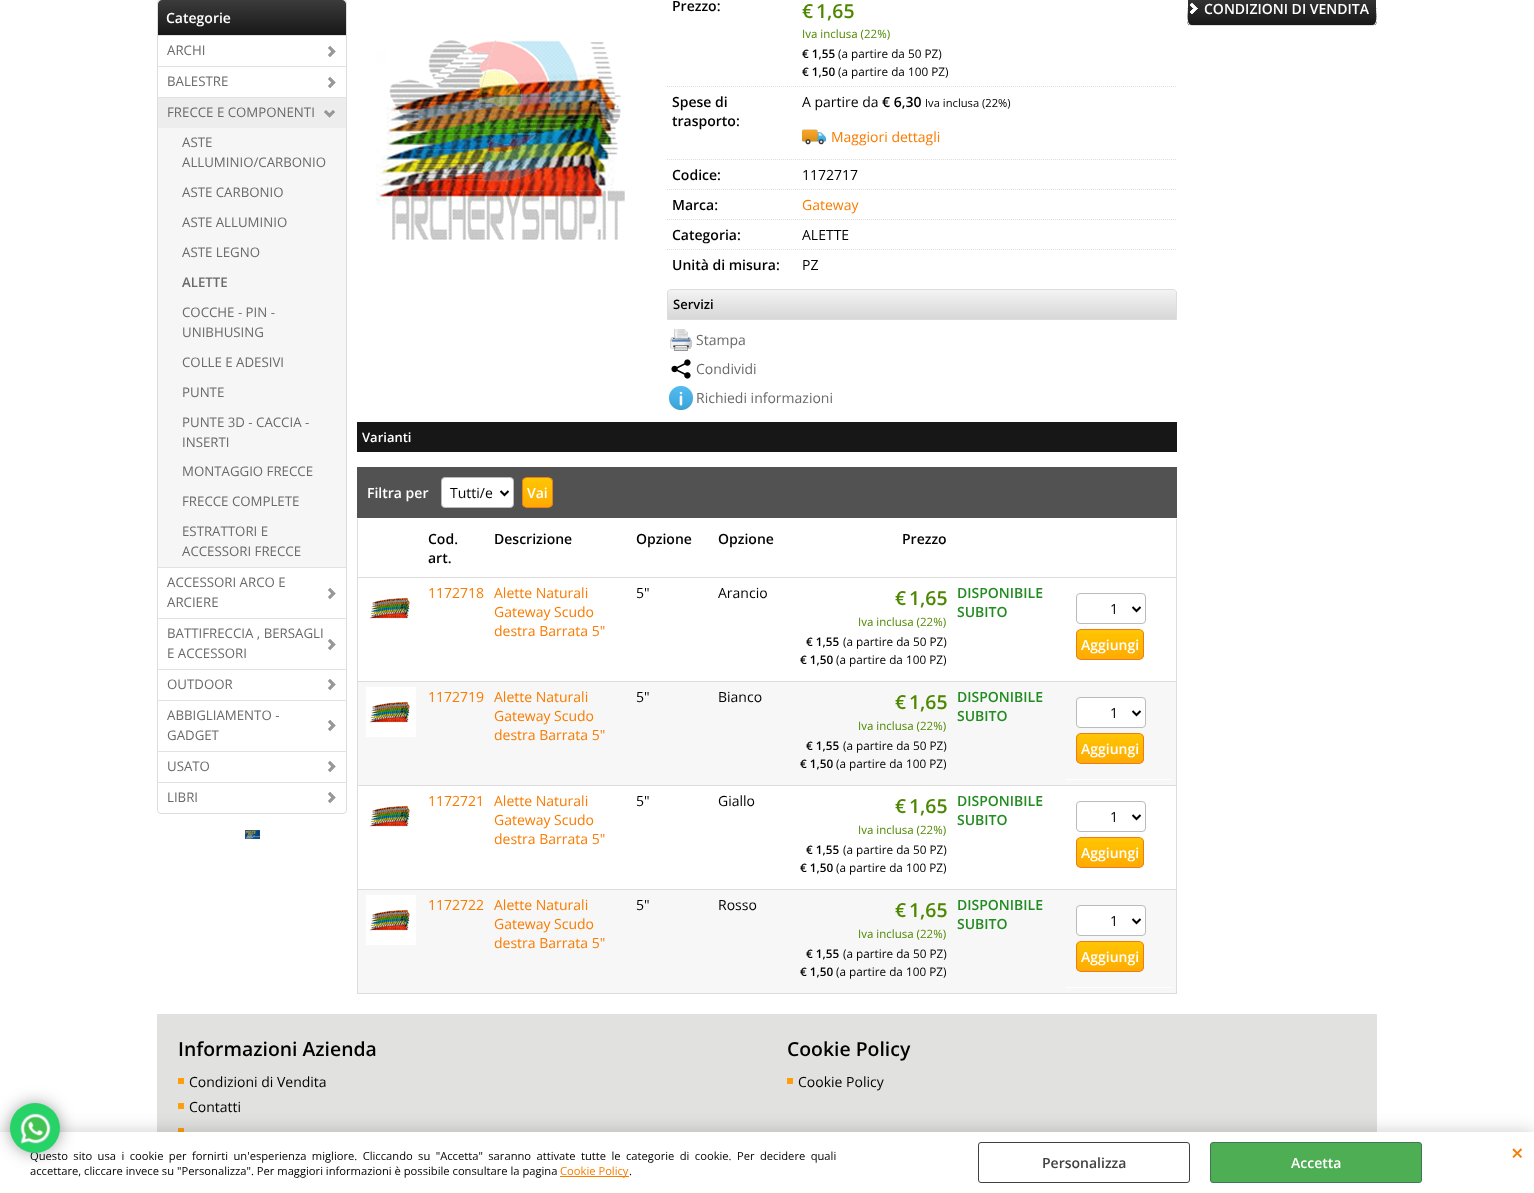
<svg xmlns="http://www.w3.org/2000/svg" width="1534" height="1193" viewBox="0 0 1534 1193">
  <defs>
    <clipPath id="clip1"><path d="M671 289H1173C1175 289 1177 291 1177 293V320H667V293C667 291 669 289 671 289Z"/></clipPath>
    <linearGradient id="g1" gradientUnits="userSpaceOnUse" x1="922" y1="290" x2="922" y2="319"><stop offset="0" stop-color="#f3f3f3"/><stop offset="1" stop-color="#d7d7d7"/></linearGradient>
    <clipPath id="clip2"><rect x="522" y="477" width="31" height="31" rx="5"/></clipPath>
    <linearGradient id="g2" gradientUnits="userSpaceOnUse" x1="538" y1="478" x2="538" y2="507"><stop offset="0" stop-color="#ffc602"/><stop offset="1" stop-color="#ffaa02"/></linearGradient>
    <clipPath id="clip3"><rect x="1076" y="629" width="68" height="31" rx="5"/></clipPath>
    <linearGradient id="g3" gradientUnits="userSpaceOnUse" x1="1110" y1="630" x2="1110" y2="659"><stop offset="0" stop-color="#ffc602"/><stop offset="1" stop-color="#ffaa02"/></linearGradient>
    <clipPath id="clip4"><rect x="1076" y="733" width="68" height="31" rx="5"/></clipPath>
    <linearGradient id="g4" gradientUnits="userSpaceOnUse" x1="1110" y1="734" x2="1110" y2="763"><stop offset="0" stop-color="#ffc602"/><stop offset="1" stop-color="#ffaa02"/></linearGradient>
    <clipPath id="clip5"><rect x="1076" y="837" width="68" height="31" rx="5"/></clipPath>
    <linearGradient id="g5" gradientUnits="userSpaceOnUse" x1="1110" y1="838" x2="1110" y2="867"><stop offset="0" stop-color="#ffc602"/><stop offset="1" stop-color="#ffaa02"/></linearGradient>
    <clipPath id="clip6"><rect x="1076" y="941" width="68" height="31" rx="5"/></clipPath>
    <linearGradient id="g6" gradientUnits="userSpaceOnUse" x1="1110" y1="942" x2="1110" y2="971"><stop offset="0" stop-color="#ffc602"/><stop offset="1" stop-color="#ffaa02"/></linearGradient>
    <clipPath id="clip7"><rect x="1187" y="-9" width="190" height="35" rx="5"/></clipPath>
    <linearGradient id="g7" gradientUnits="userSpaceOnUse" x1="1282" y1="-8" x2="1282" y2="25"><stop offset="0" stop-color="#3b3b3b"/><stop offset="1" stop-color="#171717"/></linearGradient>
    <clipPath id="clip8"><path d="M1187 0h190v1014H1187z"/></clipPath>
    <linearGradient id="g8" gradientUnits="userSpaceOnUse" x1="252" y1="0" x2="252" y2="35"><stop offset="0" stop-color="#3b3b3b"/><stop offset="1" stop-color="#171717"/></linearGradient>
  </defs>
  <rect width="100%" height="100%" fill="#fff"/>
  <image x="376" y="39" width="249" height="201" href="img/1.png"/>
  <path d="M667 86.5H797" fill="none" stroke="#ddd" stroke-dasharray="1 1"/>
  <path d="M797 86.5H1177" fill="none" stroke="#ddd" stroke-dasharray="1 1"/>
  <image x="802" y="129" width="24" height="16" href="img/2.png"/>
  <path d="M667 159.5H797" fill="none" stroke="#ddd" stroke-dasharray="1 1"/>
  <path d="M797 159.5H1177" fill="none" stroke="#ddd" stroke-dasharray="1 1"/>
  <path d="M667 189.5H797" fill="none" stroke="#ddd" stroke-dasharray="1 1"/>
  <path d="M797 189.5H1177" fill="none" stroke="#ddd" stroke-dasharray="1 1"/>
  <path d="M667 219.5H797" fill="none" stroke="#ddd" stroke-dasharray="1 1"/>
  <path d="M797 219.5H1177" fill="none" stroke="#ddd" stroke-dasharray="1 1"/>
  <path d="M667 249.5H797" fill="none" stroke="#ddd" stroke-dasharray="1 1"/>
  <path d="M797 249.5H1177" fill="none" stroke="#ddd" stroke-dasharray="1 1"/>
  <g clip-path="url(#clip1)">
    <path d="M667 290h510v29H667z" fill="url(#g1)"/>
  </g>
  <path d="M671 289.5H1173C1175 289.5 1176.5 291 1176.5 293V319.5H667.5V293C667.5 291 669 289.5 671 289.5Z" fill="none" stroke="#ddd"/>
  <image x="670" y="329" width="22" height="22" href="img/3.png"/>
  <image x="671" y="359" width="20" height="20" href="img/4.png"/>
  <image x="669" y="386" width="24" height="24" href="img/5.png"/>
  <path d="M357 422h820v30H357z" fill="#171717"/>
  <path d="M357 467h820v51H357z" fill="#535252"/>
  <rect x="441.5" y="477.5" width="72" height="30" rx="3.5" fill="#fff" stroke="#bbb"/>
  <path d="M500.5 491L504.5 495L508.5 491" fill="none" stroke="#000" stroke-width="2"/>
  <g clip-path="url(#clip2)">
    <path d="M522 478h31v29H522z" fill="url(#g2)"/>
  </g>
  <rect x="522.5" y="477.5" width="30" height="30" rx="4.5" fill="none" stroke="#eb7c19"/>
  <path d="M1176 519h1v475H1176z" fill="#ddd"/>
  <path d="M357 993h820v1H357z" fill="#ddd"/>
  <path d="M357 519h1v475H357z" fill="#ddd"/>
  <path d="M357 577h820v1H357z" fill="#ddd"/>
  <image x="369" y="597" width="41" height="22" href="img/6.png"/>
  <path d="M357 681h820v1H357z" fill="#ddd"/>
  <rect x="1076.5" y="593.5" width="69" height="30" rx="3.5" fill="none" stroke="#bbb"/>
  <path d="M1132.5 607L1136.5 611L1140.5 607" fill="none" stroke="#000" stroke-width="2"/>
  <g clip-path="url(#clip3)">
    <path d="M1076 630h68v29H1076z" fill="url(#g3)"/>
  </g>
  <rect x="1076.5" y="629.5" width="67" height="30" rx="4.5" fill="none" stroke="#eb7c19"/>
  <path d="M358 682h818v103H358z" fill="#f7f7f7"/>
  <image x="366" y="687" width="50" height="50" href="img/7.png"/>
  <path d="M357 785h820v1H357z" fill="#ddd"/>
  <path d="M1066 779h105v1H1066z" fill="#fff"/>
  <rect x="1076.5" y="697.5" width="69" height="30" rx="3.5" fill="#fff" stroke="#bbb"/>
  <path d="M1132.5 711L1136.5 715L1140.5 711" fill="none" stroke="#000" stroke-width="2"/>
  <g clip-path="url(#clip4)">
    <path d="M1076 734h68v29H1076z" fill="url(#g4)"/>
  </g>
  <rect x="1076.5" y="733.5" width="67" height="30" rx="4.5" fill="none" stroke="#eb7c19"/>
  <image x="369" y="805" width="41" height="22" href="img/6.png"/>
  <path d="M357 889h820v1H357z" fill="#ddd"/>
  <rect x="1076.5" y="801.5" width="69" height="30" rx="3.5" fill="none" stroke="#bbb"/>
  <path d="M1132.5 815L1136.5 819L1140.5 815" fill="none" stroke="#000" stroke-width="2"/>
  <g clip-path="url(#clip5)">
    <path d="M1076 838h68v29H1076z" fill="url(#g5)"/>
  </g>
  <rect x="1076.5" y="837.5" width="67" height="30" rx="4.5" fill="none" stroke="#eb7c19"/>
  <path d="M358 890h818v103H358z" fill="#f7f7f7"/>
  <image x="366" y="895" width="50" height="50" href="img/7.png"/>
  <path d="M1066 987h105v1H1066z" fill="#fff"/>
  <rect x="1076.5" y="905.5" width="69" height="30" rx="3.5" fill="#fff" stroke="#bbb"/>
  <path d="M1132.5 919L1136.5 923L1140.5 919" fill="none" stroke="#000" stroke-width="2"/>
  <g clip-path="url(#clip6)">
    <path d="M1076 942h68v29H1076z" fill="url(#g6)"/>
  </g>
  <rect x="1076.5" y="941.5" width="67" height="30" rx="4.5" fill="none" stroke="#eb7c19"/>
  <g clip-path="url(#clip7)">
    <path d="M1187 0h190v25H1187z" fill="url(#g7)"/>
  </g>
  <path d="M1375 24C1374.5 25 1373 25.5 1372 25.5H1192C1191 25.5 1189.5 25 1189 24" fill="none" stroke="#ddd"/>
  <g clip-path="url(#clip8)">
    <path d="M1189 24C1186 21.5 1187.5 12 1187.5 8.5V0C1187.5-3 1187-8.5 1192-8.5H1372C1377-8.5 1376.5-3 1376.5 0V8.5C1376.5 12 1378 21.5 1375 24" fill="none" stroke="#fff"/>
  </g>
  <image x="1190" y="3" width="8" height="11" href="img/8.png"/>
  <rect x="157.5" y="-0.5" width="189" height="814" rx="3.5" fill="none" stroke="#ddd"/>
  <path d="M162 0H342C344 0 346 2 346 4V35H158V4C158 2 160 0 162 0Z" fill="url(#g8)"/>
  <path d="M158 35h188v1H158z" fill="#e2e2e2"/>
  <image x="328" y="46" width="8" height="11" href="img/9.png"/>
  <path d="M158 66h188v1H158z" fill="#e2e2e2"/>
  <image x="328" y="77" width="8" height="11" href="img/9.png"/>
  <path d="M158 97h188v1H158z" fill="#e2e2e2"/>
  <path d="M158 98h188v30H158z" fill="#ededed"/>
  <image x="324" y="110" width="11" height="8" href="img/10.png"/>
  <path d="M158 128h188v439H158z" fill="#f6f6f6"/>
  <path d="M158 567h188v1H158z" fill="#e2e2e2"/>
  <image x="328" y="588" width="8" height="11" href="img/9.png"/>
  <path d="M158 618h188v1H158z" fill="#e2e2e2"/>
  <image x="328" y="639" width="8" height="11" href="img/9.png"/>
  <path d="M158 669h188v1H158z" fill="#e2e2e2"/>
  <image x="328" y="679" width="8" height="11" href="img/9.png"/>
  <path d="M158 700h188v1H158z" fill="#e2e2e2"/>
  <image x="328" y="720" width="8" height="11" href="img/9.png"/>
  <path d="M158 751h188v1H158z" fill="#e2e2e2"/>
  <image x="328" y="761" width="8" height="11" href="img/9.png"/>
  <path d="M158 782h188v1H158z" fill="#e2e2e2"/>
  <image x="328" y="792" width="8" height="11" href="img/9.png"/>
  <image x="245" y="830" width="15" height="9" href="img/11.png"/>
  <path d="M157 1014h1220v118H157z" fill="#e1e1e0"/>
  <path d="M178 1103h6v6H178z" fill="#ff9e0d"/>
  <path d="M178 1128h6v4H178z" fill="#ff9e0d"/>
  <path d="M0 1132h1534v61H0z" fill="#00000033" filter="blur(9px)"/>
  <path d="M0 1132h1534v61H0z" fill="#fff"/>
  <rect x="15" y="1108" width="40" height="40" rx="20" fill="#000000b3" filter="blur(10px)"/>
  <path d="M178 1078h6v6H178z" fill="#ff9e0d"/>
  <path d="M787 1078h6v6H787z" fill="#ff9e0d"/>
  <path d="M560 1176h69v1H560z" fill="#f97c00"/>
  <rect x="978.5" y="1142.5" width="211" height="40" rx="2.5" fill="none" stroke="#424141"/>
  <rect x="1210.5" y="1142.5" width="211" height="40" rx="2.5" fill="#4eae54" stroke="#3f7755"/>
  <text x="672" y="11" font-family="Open Sans" font-size="14" font-weight="600" fill="#000">Prezzo:</text>
  <g font-family="Open Sans" font-size="19.4" font-weight="600" fill="#4d8800">
    <text x="802" y="18">€</text>
    <text x="816" y="18">1,65</text>
  </g>
  <text x="802" y="38" font-family="Open Sans" font-size="11.5" fill="#4d8800">Iva inclusa (22%)</text>
  <text x="802" y="58" font-family="Open Sans" font-size="11.75" font-weight="600" fill="#000">€ 1,55</text>
  <text x="838" y="58" font-family="Open Sans" font-size="11.75" fill="#000">(a partire da 50 PZ)</text>
  <text x="802" y="76" font-family="Open Sans" font-size="11.75" font-weight="600" fill="#000">€ 1,50</text>
  <text x="838" y="76" font-family="Open Sans" font-size="11.75" fill="#000">(a partire da 100 PZ)</text>
  <g font-family="Open Sans" font-size="14" font-weight="600" fill="#000">
    <text x="672" y="107">Spese di</text>
    <text x="672" y="126">trasporto:</text>
  </g>
  <text x="802" y="107" font-family="Open Sans" font-size="14" fill="#000">A partire da</text>
  <text x="882" y="107" font-family="Open Sans" font-size="14" font-weight="600" fill="#000">€ 6,30</text>
  <text x="925" y="107" font-family="Open Sans" font-size="11.2" fill="#000">Iva inclusa (22%)</text>
  <text x="831" y="142" font-family="Open Sans" font-size="14" fill="#f97c00">Maggiori dettagli</text>
  <text x="672" y="180" font-family="Open Sans" font-size="14" font-weight="600" fill="#000">Codice:</text>
  <text x="802" y="180" font-family="Open Sans" font-size="14" fill="#000">1172717</text>
  <text x="672" y="210" font-family="Open Sans" font-size="14" font-weight="600" fill="#000">Marca:</text>
  <text x="802" y="210" font-family="Open Sans" font-size="14" fill="#f97c00">Gateway</text>
  <text x="672" y="240" font-family="Open Sans" font-size="14" font-weight="600" fill="#000">Categoria:</text>
  <text x="802" y="240" font-family="Open Sans" font-size="14" fill="#000">ALETTE</text>
  <text x="672" y="270" font-family="Open Sans" font-size="14" font-weight="600" fill="#000">Unità di misura:</text>
  <text x="802" y="270" font-family="Open Sans" font-size="14" fill="#000">PZ</text>
  <text x="673" y="309" font-family="Open Sans" font-size="13" font-weight="600" fill="#000">Servizi</text>
  <g font-family="Open Sans" font-size="14" fill="#6b6969">
    <text x="696" y="345">Stampa</text>
    <text x="696" y="374">Condividi</text>
    <text x="696" y="403">Richiedi informazioni</text>
  </g>
  <text x="362" y="442" font-family="Open Sans" font-size="13" font-weight="600" fill="#fff">Varianti</text>
  <text x="367" y="498" font-family="Open Sans" font-size="14" font-weight="600" fill="#fff">Filtra per</text>
  <text x="450" y="498" font-family="Open Sans" font-size="14" fill="#000">Tutti/e</text>
  <text x="527" y="498" font-family="Open Sans" font-size="14" font-weight="600" fill="#fff">Vai</text>
  <g font-family="Open Sans" font-size="14" font-weight="600" fill="#000">
    <text x="428" y="544">Cod.</text>
    <text x="428" y="563">art.</text>
    <text x="494" y="544">Descrizione</text>
    <text x="636" y="544">Opzione</text>
    <text x="718" y="544">Opzione</text>
    <text x="902" y="544">Prezzo</text>
  </g>
  <g font-family="Open Sans" font-size="14" fill="#f97c00">
    <text x="428" y="598">1172718</text>
    <text x="494" y="598">Alette Naturali</text>
    <text x="494" y="617">Gateway Scudo</text>
    <text x="494" y="636">destra Barrata 5"</text>
  </g>
  <g font-family="Open Sans" font-size="14" fill="#000">
    <text x="636" y="598">5"</text>
    <text x="718" y="598">Arancio</text>
  </g>
  <g font-family="Open Sans" font-size="19.4" font-weight="600" fill="#4d8800">
    <text x="895" y="605">€</text>
    <text x="909" y="605">1,65</text>
  </g>
  <text x="858" y="626" font-family="Open Sans" font-size="11.5" fill="#4d8800">Iva inclusa (22%)</text>
  <text x="806" y="646" font-family="Open Sans" font-size="11.75" font-weight="600" fill="#000">€ 1,55</text>
  <text x="843" y="646" font-family="Open Sans" font-size="11.75" fill="#000">(a partire da 50 PZ)</text>
  <text x="800" y="664" font-family="Open Sans" font-size="11.75" font-weight="600" fill="#000">€ 1,50</text>
  <text x="836" y="664" font-family="Open Sans" font-size="11.75" fill="#000">(a partire da 100 PZ)</text>
  <g font-family="Open Sans" font-size="14" font-weight="600" fill="#228b22">
    <text x="957" y="598">DISPONIBILE</text>
    <text x="957" y="617">SUBITO</text>
  </g>
  <text x="1110" y="614" font-family="Open Sans" font-size="14" fill="#000">1</text>
  <text x="1081" y="650" font-family="Open Sans" font-size="14" font-weight="600" fill="#fff">Aggiungi</text>
  <g font-family="Open Sans" font-size="14" fill="#f97c00">
    <text x="428" y="702">1172719</text>
    <text x="494" y="702">Alette Naturali</text>
    <text x="494" y="721">Gateway Scudo</text>
    <text x="494" y="740">destra Barrata 5"</text>
  </g>
  <g font-family="Open Sans" font-size="14" fill="#000">
    <text x="636" y="702">5"</text>
    <text x="718" y="702">Bianco</text>
  </g>
  <g font-family="Open Sans" font-size="19.4" font-weight="600" fill="#4d8800">
    <text x="895" y="709">€</text>
    <text x="909" y="709">1,65</text>
  </g>
  <text x="858" y="730" font-family="Open Sans" font-size="11.5" fill="#4d8800">Iva inclusa (22%)</text>
  <text x="806" y="750" font-family="Open Sans" font-size="11.75" font-weight="600" fill="#000">€ 1,55</text>
  <text x="843" y="750" font-family="Open Sans" font-size="11.75" fill="#000">(a partire da 50 PZ)</text>
  <text x="800" y="768" font-family="Open Sans" font-size="11.75" font-weight="600" fill="#000">€ 1,50</text>
  <text x="836" y="768" font-family="Open Sans" font-size="11.75" fill="#000">(a partire da 100 PZ)</text>
  <g font-family="Open Sans" font-size="14" font-weight="600" fill="#228b22">
    <text x="957" y="702">DISPONIBILE</text>
    <text x="957" y="721">SUBITO</text>
  </g>
  <text x="1110" y="718" font-family="Open Sans" font-size="14" fill="#000">1</text>
  <text x="1081" y="754" font-family="Open Sans" font-size="14" font-weight="600" fill="#fff">Aggiungi</text>
  <g font-family="Open Sans" font-size="14" fill="#f97c00">
    <text x="428" y="806">1172721</text>
    <text x="494" y="806">Alette Naturali</text>
    <text x="494" y="825">Gateway Scudo</text>
    <text x="494" y="844">destra Barrata 5"</text>
  </g>
  <g font-family="Open Sans" font-size="14" fill="#000">
    <text x="636" y="806">5"</text>
    <text x="718" y="806">Giallo</text>
  </g>
  <g font-family="Open Sans" font-size="19.4" font-weight="600" fill="#4d8800">
    <text x="895" y="813">€</text>
    <text x="909" y="813">1,65</text>
  </g>
  <text x="858" y="834" font-family="Open Sans" font-size="11.5" fill="#4d8800">Iva inclusa (22%)</text>
  <text x="806" y="854" font-family="Open Sans" font-size="11.75" font-weight="600" fill="#000">€ 1,55</text>
  <text x="843" y="854" font-family="Open Sans" font-size="11.75" fill="#000">(a partire da 50 PZ)</text>
  <text x="800" y="872" font-family="Open Sans" font-size="11.75" font-weight="600" fill="#000">€ 1,50</text>
  <text x="836" y="872" font-family="Open Sans" font-size="11.75" fill="#000">(a partire da 100 PZ)</text>
  <g font-family="Open Sans" font-size="14" font-weight="600" fill="#228b22">
    <text x="957" y="806">DISPONIBILE</text>
    <text x="957" y="825">SUBITO</text>
  </g>
  <text x="1110" y="822" font-family="Open Sans" font-size="14" fill="#000">1</text>
  <text x="1081" y="858" font-family="Open Sans" font-size="14" font-weight="600" fill="#fff">Aggiungi</text>
  <g font-family="Open Sans" font-size="14" fill="#f97c00">
    <text x="428" y="910">1172722</text>
    <text x="494" y="910">Alette Naturali</text>
    <text x="494" y="929">Gateway Scudo</text>
    <text x="494" y="948">destra Barrata 5"</text>
  </g>
  <g font-family="Open Sans" font-size="14" fill="#000">
    <text x="636" y="910">5"</text>
    <text x="718" y="910">Rosso</text>
  </g>
  <g font-family="Open Sans" font-size="19.4" font-weight="600" fill="#4d8800">
    <text x="895" y="917">€</text>
    <text x="909" y="917">1,65</text>
  </g>
  <text x="858" y="938" font-family="Open Sans" font-size="11.5" fill="#4d8800">Iva inclusa (22%)</text>
  <text x="806" y="958" font-family="Open Sans" font-size="11.75" font-weight="600" fill="#000">€ 1,55</text>
  <text x="843" y="958" font-family="Open Sans" font-size="11.75" fill="#000">(a partire da 50 PZ)</text>
  <text x="800" y="976" font-family="Open Sans" font-size="11.75" font-weight="600" fill="#000">€ 1,50</text>
  <text x="836" y="976" font-family="Open Sans" font-size="11.75" fill="#000">(a partire da 100 PZ)</text>
  <g font-family="Open Sans" font-size="14" font-weight="600" fill="#228b22">
    <text x="957" y="910">DISPONIBILE</text>
    <text x="957" y="929">SUBITO</text>
  </g>
  <text x="1110" y="926" font-family="Open Sans" font-size="14" fill="#000">1</text>
  <g font-family="Open Sans" font-size="14" font-weight="600" fill="#fff">
    <text x="1081" y="962">Aggiungi</text>
    <text x="1204" y="14">CONDIZIONI DI VENDITA</text>
    <text x="166" y="23">Categorie</text>
  </g>
  <g font-family="Open Sans" font-size="13.25" fill="#6b6969">
    <text x="167" y="55">ARCHI</text>
    <text x="167" y="86">BALESTRE</text>
    <text x="167" y="117">FRECCE E COMPONENTI</text>
    <text x="182" y="147">ASTE</text>
    <text x="182" y="167">ALLUMINIO/CARBONIO</text>
    <text x="182" y="197">ASTE CARBONIO</text>
    <text x="182" y="227">ASTE ALLUMINIO</text>
    <text x="182" y="257">ASTE LEGNO</text>
  </g>
  <text x="182" y="287" font-family="Open Sans" font-size="13.25" font-weight="600" fill="#6b6969">ALETTE</text>
  <g font-family="Open Sans" font-size="13.25" fill="#6b6969">
    <text x="182" y="317">COCCHE - PIN -</text>
    <text x="182" y="337">UNIBHUSING</text>
    <text x="182" y="367">COLLE E ADESIVI</text>
    <text x="182" y="397">PUNTE</text>
    <text x="182" y="427">PUNTE 3D - CACCIA -</text>
    <text x="182" y="447">INSERTI</text>
    <text x="182" y="476">MONTAGGIO FRECCE</text>
    <text x="182" y="506">FRECCE COMPLETE</text>
    <text x="182" y="536">ESTRATTORI E</text>
    <text x="182" y="556">ACCESSORI FRECCE</text>
    <text x="167" y="587">ACCESSORI ARCO E</text>
    <text x="167" y="607">ARCIERE</text>
    <text x="167" y="638">BATTIFRECCIA , BERSAGLI</text>
    <text x="167" y="658">E ACCESSORI</text>
    <text x="167" y="689">OUTDOOR</text>
    <text x="167" y="720">ABBIGLIAMENTO -</text>
    <text x="167" y="740">GADGET</text>
    <text x="167" y="771">USATO</text>
    <text x="167" y="802">LIBRI</text>
  </g>
  <text x="178" y="1056" font-family="Open Sans" font-size="19.4" font-weight="600" fill="#000">Informazioni Azienda</text>
  <g font-family="Open Sans" font-size="14" fill="#000">
    <text x="189" y="1087">Condizioni di Vendita</text>
    <text x="189" y="1112">Contatti</text>
  </g>
  <text x="787" y="1056" font-family="Open Sans" font-size="19.4" font-weight="600" fill="#000">Cookie Policy</text>
  <text x="798" y="1087" font-family="Open Sans" font-size="14" fill="#000">Cookie Policy</text>
  <text x="30" y="1160" word-spacing="2.5" font-family="Open Sans" font-size="11.2" fill="#000">Questo sito usa i cookie per fornirti un'esperienza migliore. Cliccando su "Accetta" saranno attivate tutte le categorie di cookie. Per decidere quali</text>
  <circle cx="35" cy="1128" r="25" fill="#25d366"/>
  <image x="20" y="1113" width="31" height="31" href="img/12.png"/>
  <text x="30" y="1175" font-family="Open Sans" font-size="11.2" fill="#000">accettare, cliccare invece su "Personalizza". Per maggiori informazioni è possibile consultare la pagina</text>
  <text x="560" y="1175" font-family="Open Sans" font-size="11.2" fill="#f97c00">Cookie Policy</text>
  <text x="629" y="1175" font-family="Open Sans" font-size="11.2" fill="#000">.</text>
  <text x="1042" y="1168" font-family="Open Sans" font-size="14" font-weight="600" fill="#424141">Personalizza</text>
  <text x="1291" y="1168" font-family="Open Sans" font-size="14" font-weight="600" fill="#fff">Accetta</text>
  <text x="1511" y="1161" font-family="Open Sans" font-size="22" font-weight="600" fill="#f97c00">×</text>
</svg>
